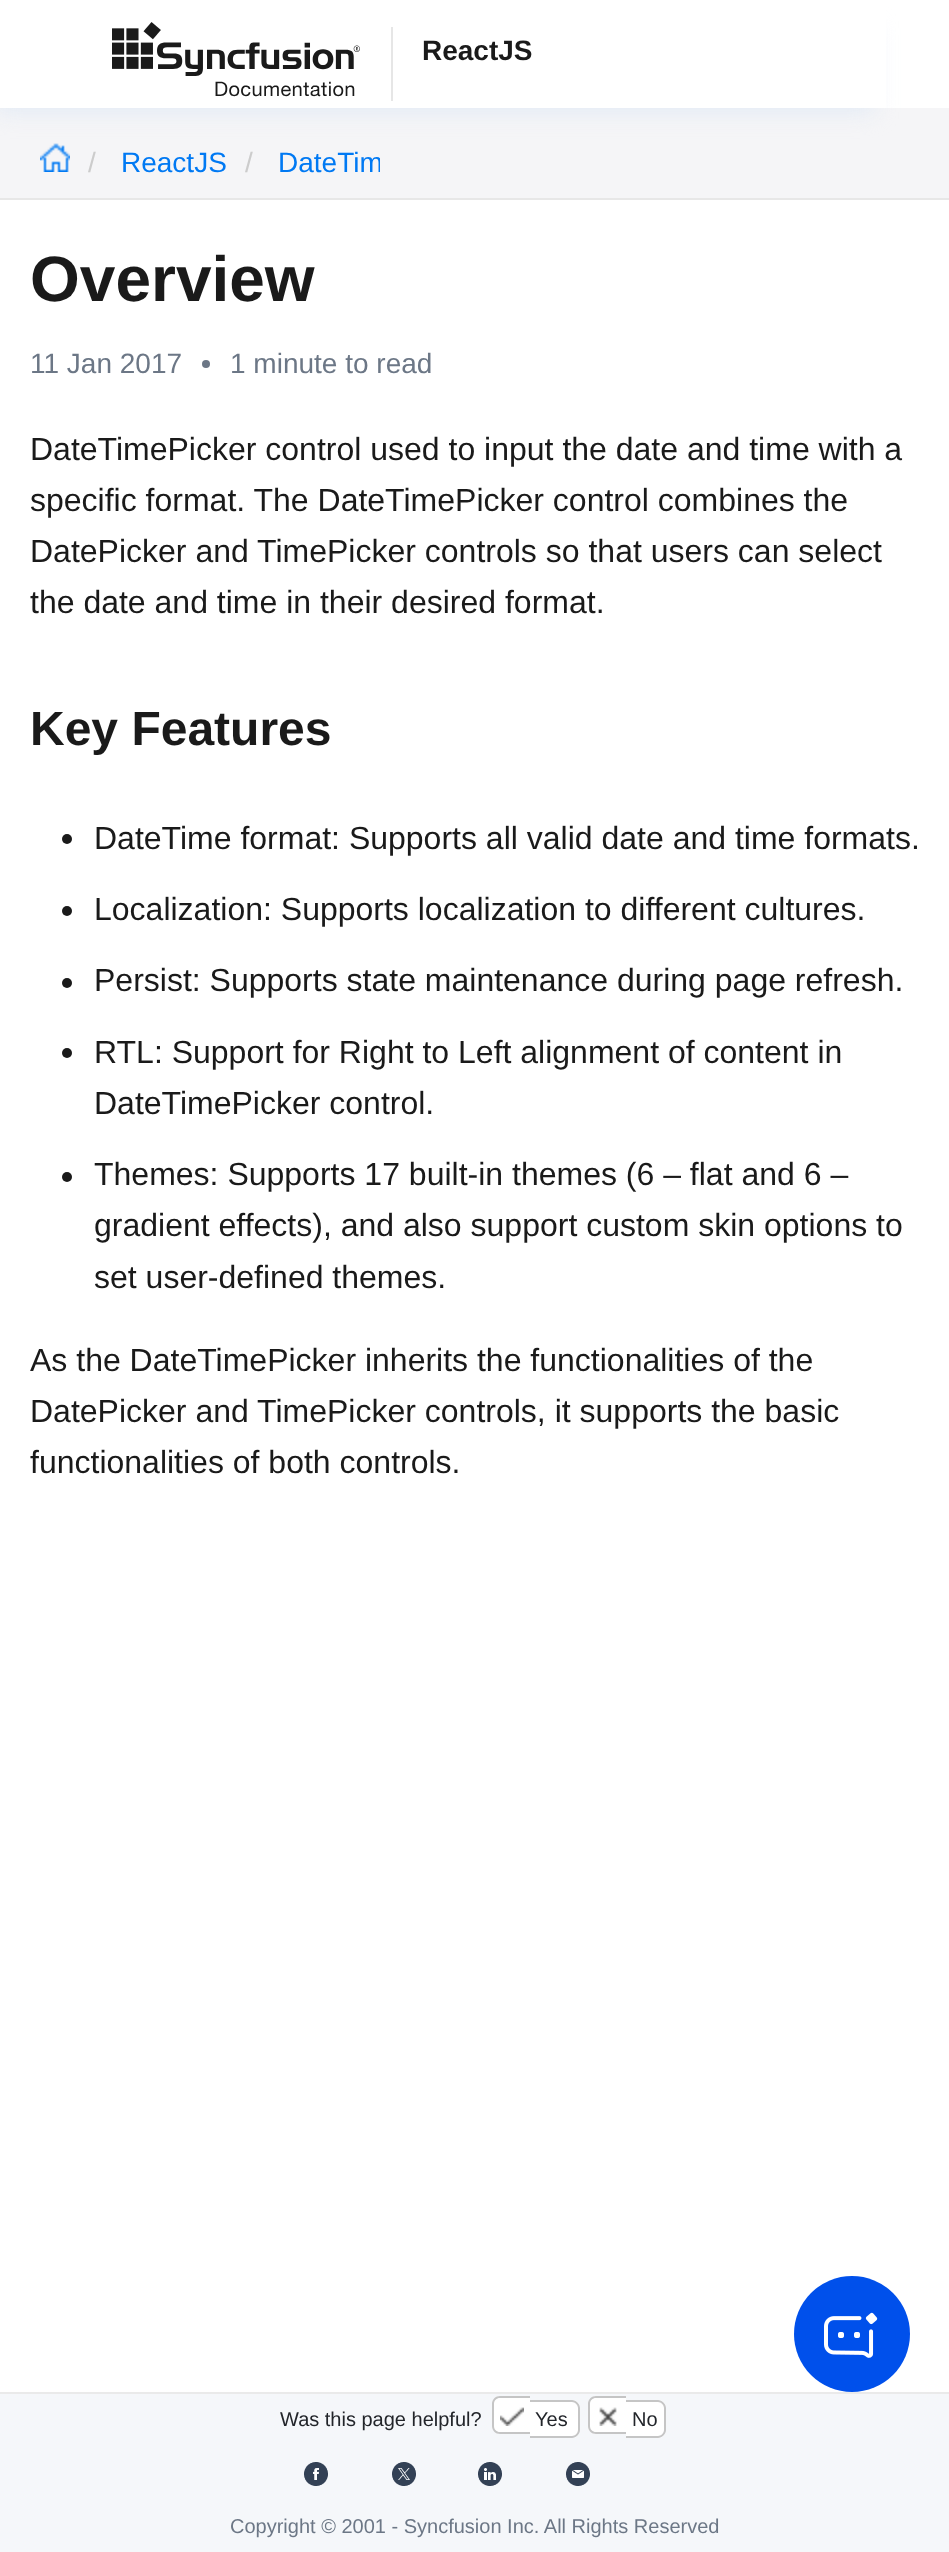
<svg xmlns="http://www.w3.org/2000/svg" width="949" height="2552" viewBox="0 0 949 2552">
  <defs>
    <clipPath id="clip1"><path d="M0 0H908V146H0ZM-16 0H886V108H-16Z" clip-rule="evenodd"/></clipPath>
    <clipPath id="clip2"><path d="M0 108h380v82H0z"/></clipPath>
  </defs>
  <rect width="100%" height="100%" fill="#fff"/>
  <path d="M0 108h949v90H0z" fill="#f5f5f7"/>
  <image x="40" y="143" width="30" height="29" href="img/2.png"/>
  <g clip-path="url(#clip1)">
    <path d="M-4 28h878v84H-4z" fill="#e2eaf5" filter="blur(11px)"/>
  </g>
  <image x="112" y="22" width="281" height="79" href="img/1.png"/>
  <path d="M0 198h949v2H0z" fill="#e7e7e7"/>
  <circle cx="206" cy="364" r="4" fill="#6c7786"/>
  <circle cx="67" cy="839" r="5" fill="#1a1a1a"/>
  <circle cx="67" cy="911" r="5" fill="#1a1a1a"/>
  <circle cx="67" cy="983" r="5" fill="#1a1a1a"/>
  <circle cx="67" cy="1053" r="5" fill="#1a1a1a"/>
  <circle cx="67" cy="1177" r="5" fill="#1a1a1a"/>
  <circle cx="852" cy="2334" r="58" fill="#0050eb"/>
  <image x="824" y="2312" width="54" height="46" href="img/3.png"/>
  <path d="M0 2394h949v158H0z" fill="#f5f7fa"/>
  <path d="M0 2392h949v2H0z" fill="#eaeaea"/>
  <path d="M500 2396H530V2434H500C495.5 2434 492 2430.5 492 2426V2404C492 2399.5 495.5 2396 500 2396Z" fill="#fff"/>
  <path d="M500 2396H530V2434H500C495.5 2434 492 2430.5 492 2426V2404C492 2399.5 495.5 2396 500 2396ZM500 2398H530V2432H500C496.5 2432 494 2429.5 494 2426V2404C494 2400.5 496.5 2398 500 2398Z" fill="#c5c5c5" fill-rule="evenodd"/>
  <path d="M530 2400H572C576.5 2400 580 2403.5 580 2408V2430C580 2434.5 576.5 2438 572 2438H530Z" fill="#fff"/>
  <path d="M530 2400H572C576 2400 580 2404 580 2408V2430C580 2434 576 2438 572 2438H530ZM530 2402H572C575 2402 578 2405 578 2408V2430C578 2433 575 2436 572 2436H530Z" fill="#c5c5c5" fill-rule="evenodd"/>
  <image x="500" y="2407" width="24" height="19" href="img/4.png"/>
  <path d="M596 2396H626V2434H596C591.5 2434 588 2430.5 588 2426V2404C588 2399.5 591.5 2396 596 2396Z" fill="#fff"/>
  <path d="M596 2396H626V2434H596C591.5 2434 588 2430.5 588 2426V2404C588 2399.5 591.5 2396 596 2396ZM596 2398H626V2432H596C592.5 2432 590 2429.5 590 2426V2404C590 2400.5 592.5 2398 596 2398Z" fill="#c5c5c5" fill-rule="evenodd"/>
  <path d="M626 2400H658C662.5 2400 666 2403.5 666 2408V2430C666 2434.5 662.5 2438 658 2438H626Z" fill="#fff"/>
  <path d="M626 2400H658C662 2400 666 2404 666 2408V2430C666 2434 662 2438 658 2438H626ZM626 2402H658C661 2402 664 2405 664 2408V2430C664 2433 661 2436 658 2436H626Z" fill="#c5c5c5" fill-rule="evenodd"/>
  <image x="599" y="2407" width="18" height="19" href="img/5.png"/>
  <image x="304" y="2462" width="24" height="24" href="img/6.png"/>
  <image x="392" y="2462" width="24" height="24" href="img/7.png"/>
  <image x="478" y="2462" width="24" height="24" href="img/8.png"/>
  <image x="566" y="2462" width="24" height="24" href="img/9.png"/>
  <text x="422" y="60" font-family="Liberation Sans" font-size="28" font-weight="bold" fill="#1a1a1a">ReactJS</text>
  <text x="88" y="172" font-family="Liberation Sans" font-size="28" fill="#ccc">/</text>
  <text x="121" y="172" font-family="Liberation Sans" font-size="28" fill="#0079f3">ReactJS</text>
  <text x="245" y="172" font-family="Liberation Sans" font-size="28" fill="#ccc">/</text>
  <g clip-path="url(#clip2)">
    <text x="278" y="172" font-family="Liberation Sans" font-size="28" fill="#0079f3">DateTim</text>
  </g>
  <text x="30" y="301" font-family="Liberation Sans" font-size="64" font-weight="bold" fill="#1a1a1a">Overview</text>
  <g font-family="Liberation Sans" font-size="28" fill="#6c7786">
    <text x="30" y="373">11 Jan 2017</text>
    <text x="230" y="373">1 minute to read</text>
  </g>
  <g font-family="Liberation Sans" font-size="32" fill="#1a1a1a">
    <text x="30" y="460">DateTimePicker control used to input the date and time with a</text>
    <text x="30" y="511">specific format. The DateTimePicker control combines the</text>
    <text x="30" y="562">DatePicker and TimePicker controls so that users can select</text>
    <text x="30" y="613">the date and time in their desired format.</text>
  </g>
  <text x="30" y="745" font-family="Liberation Sans" font-size="48" font-weight="bold" fill="#1a1a1a">Key Features</text>
  <g font-family="Liberation Sans" font-size="32" fill="#1a1a1a">
    <text x="94" y="849">DateTime format: Supports all valid date and time formats.</text>
    <text x="94" y="920">Localization: Supports localization to different cultures.</text>
    <text x="94" y="991">Persist: Supports state maintenance during page refresh.</text>
    <text x="94" y="1063">RTL: Support for Right to Left alignment of content in</text>
    <text x="94" y="1114">DateTimePicker control.</text>
    <text x="94" y="1185">Themes: Supports 17 built-in themes (6 – flat and 6 –</text>
    <text x="94" y="1236">gradient effects), and also support custom skin options to</text>
    <text x="94" y="1288">set user-defined themes.</text>
    <text x="30" y="1371">As the DateTimePicker inherits the functionalities of the</text>
    <text x="30" y="1422">DatePicker and TimePicker controls, it supports the basic</text>
    <text x="30" y="1473">functionalities of both controls.</text>
  </g>
  <g font-family="Liberation Sans" font-size="20" fill="#22252a">
    <text x="280" y="2426">Was this page helpful?</text>
    <text x="535" y="2426">Yes</text>
    <text x="632" y="2426">No</text>
  </g>
  <text x="230" y="2533" font-family="Liberation Sans" font-size="20" fill="#6c7786">Copyright © 2001 - Syncfusion Inc. All Rights Reserved</text>
</svg>
